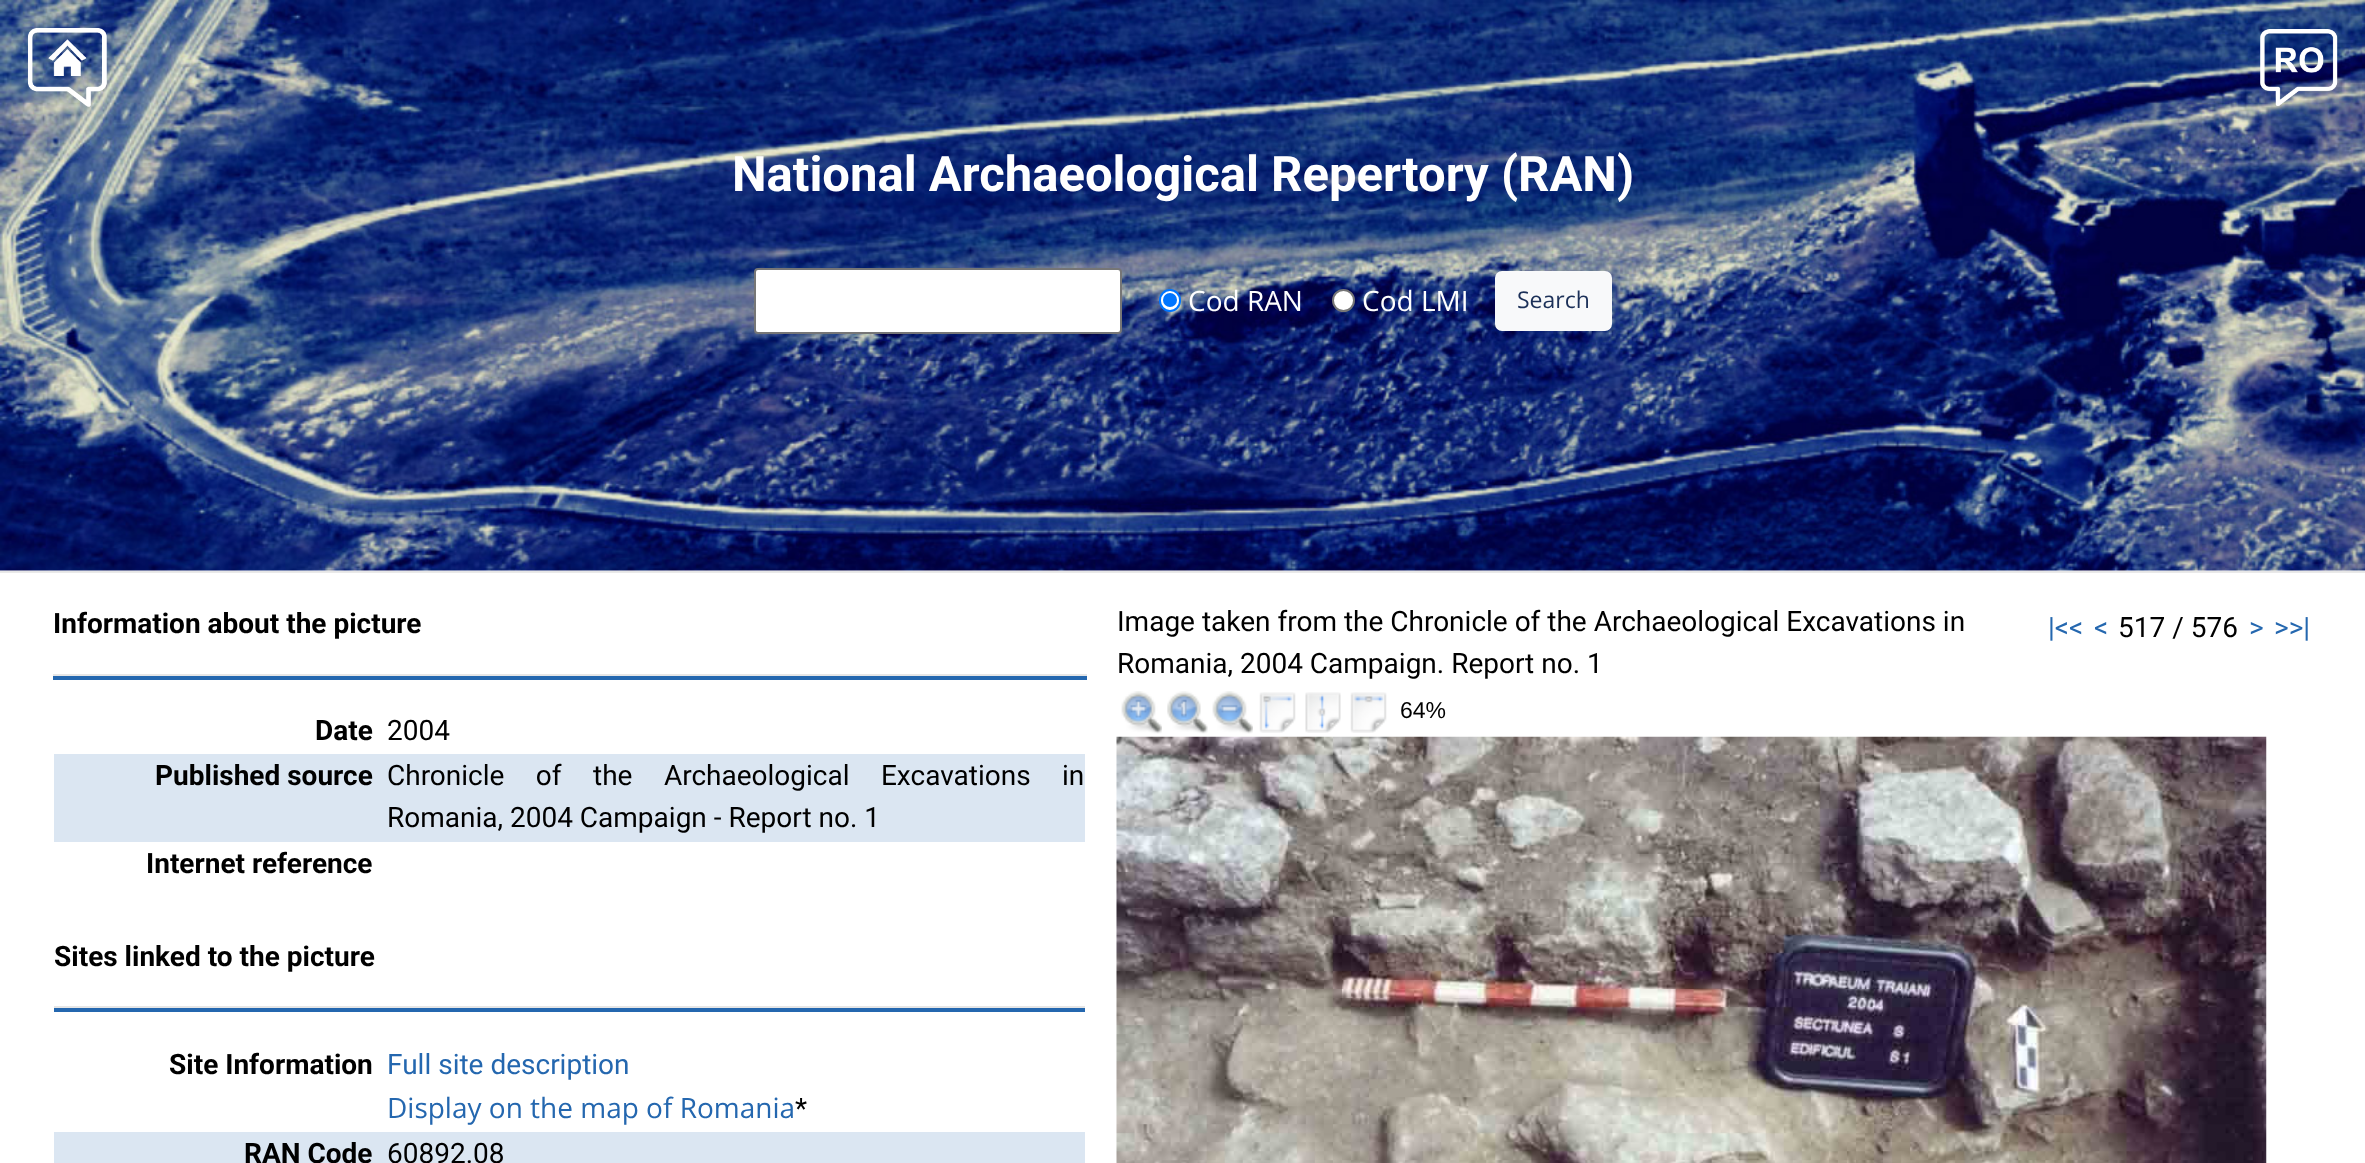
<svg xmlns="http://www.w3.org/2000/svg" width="2365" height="1163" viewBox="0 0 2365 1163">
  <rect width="100%" height="100%" fill="#fff"/>
  <image x="0" y="0" width="2365" height="571" href="img/1.png"/>
  <image x="28" y="28" width="79" height="79" href="img/2.png"/>
  <image x="2260" y="29" width="78" height="77" href="img/3.png"/>
  <rect x="755" y="269" width="366" height="64" rx="3" fill="#fff" stroke="#767676" stroke-width="2"/>
  <rect x="1160" y="290" width="20" height="21" rx="10" fill="#fff" stroke="#0075ff" stroke-width="2"/>
  <circle cx="1170" cy="300" r="7" fill="#0075ff"/>
  <circle cx="1343.5" cy="300.5" r="10.5" fill="#fff" stroke="#767676" stroke-width="2"/>
  <rect x="1496" y="272" width="115" height="58" rx="6" fill="#f8f9fa" stroke="#f8f9fa" stroke-width="2"/>
  <path d="M0 571h2365v1H0z" fill="#e6e6e6"/>
  <path d="M0 572h2365v1H0z" fill="#e9e9e9"/>
  <path d="M53 674h1034v2H53z" fill="#e6e6e6"/>
  <path d="M53 676h1034v4H53z" fill="#2467af"/>
  <path d="M54 754h1031v88H54z" fill="#dbe6f2"/>
  <path d="M54 1006h1031v2H54z" fill="#e6e6e6"/>
  <path d="M54 1008h1031v4H54z" fill="#2467af"/>
  <path d="M54 1132h1031v31H54z" fill="#dbe6f2"/>
  <image x="1121" y="691" width="41" height="43" href="img/4.png"/>
  <image x="1167" y="691" width="41" height="43" href="img/5.png"/>
  <image x="1212" y="691" width="41" height="43" href="img/6.png"/>
  <image x="1259" y="692" width="37" height="41" href="img/7.png"/>
  <image x="1305" y="692" width="36" height="41" href="img/8.png"/>
  <image x="1350" y="692" width="37" height="41" href="img/9.png"/>
  <image x="1116" y="736" width="1151" height="427" href="img/10.png"/>
  <text x="732" y="191" font-family="Roboto" font-size="49" font-weight="bold" fill="#fff">National Archaeological Repertory (RAN)</text>
  <g font-family="Open Sans" font-size="28" fill="#fff">
    <text x="1188" y="311">Cod RAN</text>
    <text x="1362" y="311">Cod LMI</text>
  </g>
  <text x="1517" y="308" font-family="Open Sans" font-size="23" fill="#1b3058">Search</text>
  <g font-family="Roboto" font-size="28" font-weight="bold" fill="#000">
    <text x="53" y="633">Information about the picture</text>
    <text x="315" y="740">Date</text>
  </g>
  <text x="387" y="740" font-family="Roboto" font-size="28" fill="#000">2004</text>
  <text x="155" y="785" font-family="Roboto" font-size="28" font-weight="bold" fill="#000">Published source</text>
  <g font-family="Roboto" font-size="28" fill="#000">
    <text x="387" y="785" word-spacing="24.5">Chronicle of the Archaeological Excavations in</text>
    <text x="387" y="827">Romania, 2004 Campaign - Report no. 1</text>
  </g>
  <g font-family="Roboto" font-size="28" font-weight="bold" fill="#000">
    <text x="146" y="873">Internet reference</text>
    <text x="54" y="966">Sites linked to the picture</text>
    <text x="169" y="1074">Site Information</text>
  </g>
  <text x="387" y="1074" font-family="Roboto" font-size="28" fill="#2467af">Full site description</text>
  <text x="387" y="1118" font-family="Open Sans" font-size="28" fill="#2467af">Display on the map of Romania</text>
  <text x="795" y="1118" font-family="Roboto" font-size="28" fill="#000">*</text>
  <text x="244" y="1163" font-family="Roboto" font-size="28" font-weight="bold" fill="#000">RAN Code</text>
  <g font-family="Roboto" font-size="28" fill="#000">
    <text x="387" y="1163">60892.08</text>
    <text x="1117" y="631">Image taken from the Chronicle of the Archaeological Excavations in</text>
    <text x="1117" y="673">Romania, 2004 Campaign. Report no. 1</text>
  </g>
  <g font-family="Roboto" font-size="28" fill="#2467af">
    <text x="2048" y="637">|&lt;&lt;</text>
    <text x="2094" y="637">&lt;</text>
  </g>
  <text x="2118" y="637" font-family="Roboto" font-size="28" fill="#000">517 / 576</text>
  <g font-family="Roboto" font-size="28" fill="#2467af">
    <text x="2249" y="637">&gt;</text>
    <text x="2274" y="637">&gt;&gt;|</text>
  </g>
  <text x="1400" y="718" font-family="Liberation Sans" font-size="23" fill="#000">64%</text>
</svg>
